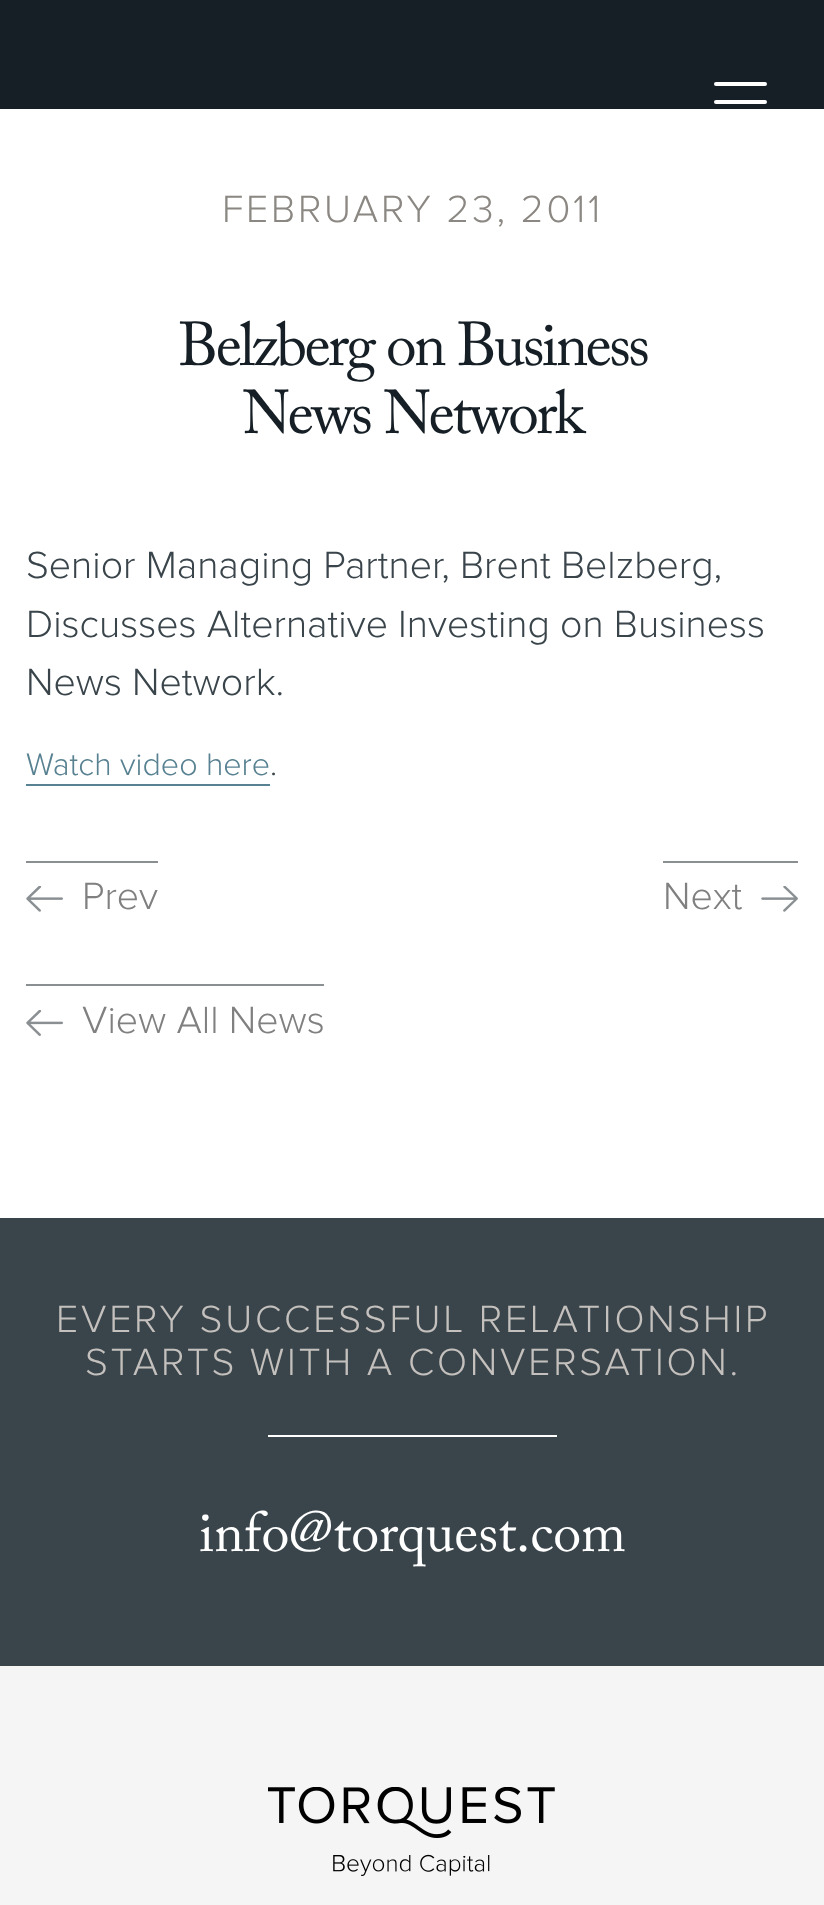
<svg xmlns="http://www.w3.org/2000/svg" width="824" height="1905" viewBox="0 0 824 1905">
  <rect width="100%" height="100%" fill="#fff"/>
  <path d="M0 0h824v109H0z" fill="#151f25"/>
  <rect x="714" y="82" width="53" height="4" rx="2" fill="#fff"/>
  <rect x="714" y="100" width="53" height="4" rx="2" fill="#fff"/>
  <path d="M26 784h244v2H26z" fill="#588191"/>
  <image x="26" y="886" width="37" height="26" href="img/1.png"/>
  <path d="M26 861h132v2H26z" fill="#8a8f92"/>
  <image x="761" y="886" width="37" height="26" href="img/2.png"/>
  <path d="M663 861h135v2H663z" fill="#8a8f92"/>
  <image x="26" y="1010" width="37" height="26" href="img/3.png"/>
  <path d="M26 984h298v2H26z" fill="#8a8f92"/>
  <path d="M0 1218h824v448H0z" fill="#3a454b"/>
  <path d="M268 1435h289v2H268z" fill="#fff"/>
  <path d="M0 1666h824v239H0z" fill="#f5f5f6"/>
  <image x="268" y="1787" width="287" height="89" href="img/4.png"/>
  <text x="222" y="222" font-family="Proxima Nova" font-size="39.25" font-weight="300" letter-spacing="2.8" fill="#8b8782">FEBRUARY 23, 2011</text>
  <g font-family="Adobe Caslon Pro" font-size="61.5" letter-spacing="-2.75" fill="#151f25">
    <text x="178" y="365">Belzberg on Business</text>
    <text x="242" y="433">News Network</text>
  </g>
  <g font-family="Proxima Nova" font-size="39.25" font-weight="300" fill="#3a454b">
    <text x="26" y="578">Senior Managing Partner, Brent Belzberg,</text>
    <text x="26" y="637">Discusses Alternative Investing on Business</text>
    <text x="26" y="695">News Network.</text>
  </g>
  <text x="26" y="775" font-family="Proxima Nova" font-size="32.25" font-weight="300" fill="#588191">Watch video here</text>
  <text x="270" y="775" font-family="Proxima Nova" font-size="32.25" font-weight="300" fill="#3a454b">.</text>
  <g font-family="Proxima Nova" font-size="39.25" font-weight="300" fill="#808080">
    <text x="82" y="909">Prev</text>
    <text x="663" y="909">Next</text>
    <text x="82" y="1033">View All News</text>
  </g>
  <g font-family="Proxima Nova" font-size="39.25" font-weight="300" letter-spacing="2.8" fill="#c4c0bd">
    <text x="56" y="1332">EVERY SUCCESSFUL RELATIONSHIP</text>
    <text x="85" y="1375">STARTS WITH A CONVERSATION.</text>
  </g>
  <text x="199" y="1551" font-family="Adobe Caslon Pro" font-size="56" fill="#fff">info@torquest.com</text>
</svg>
